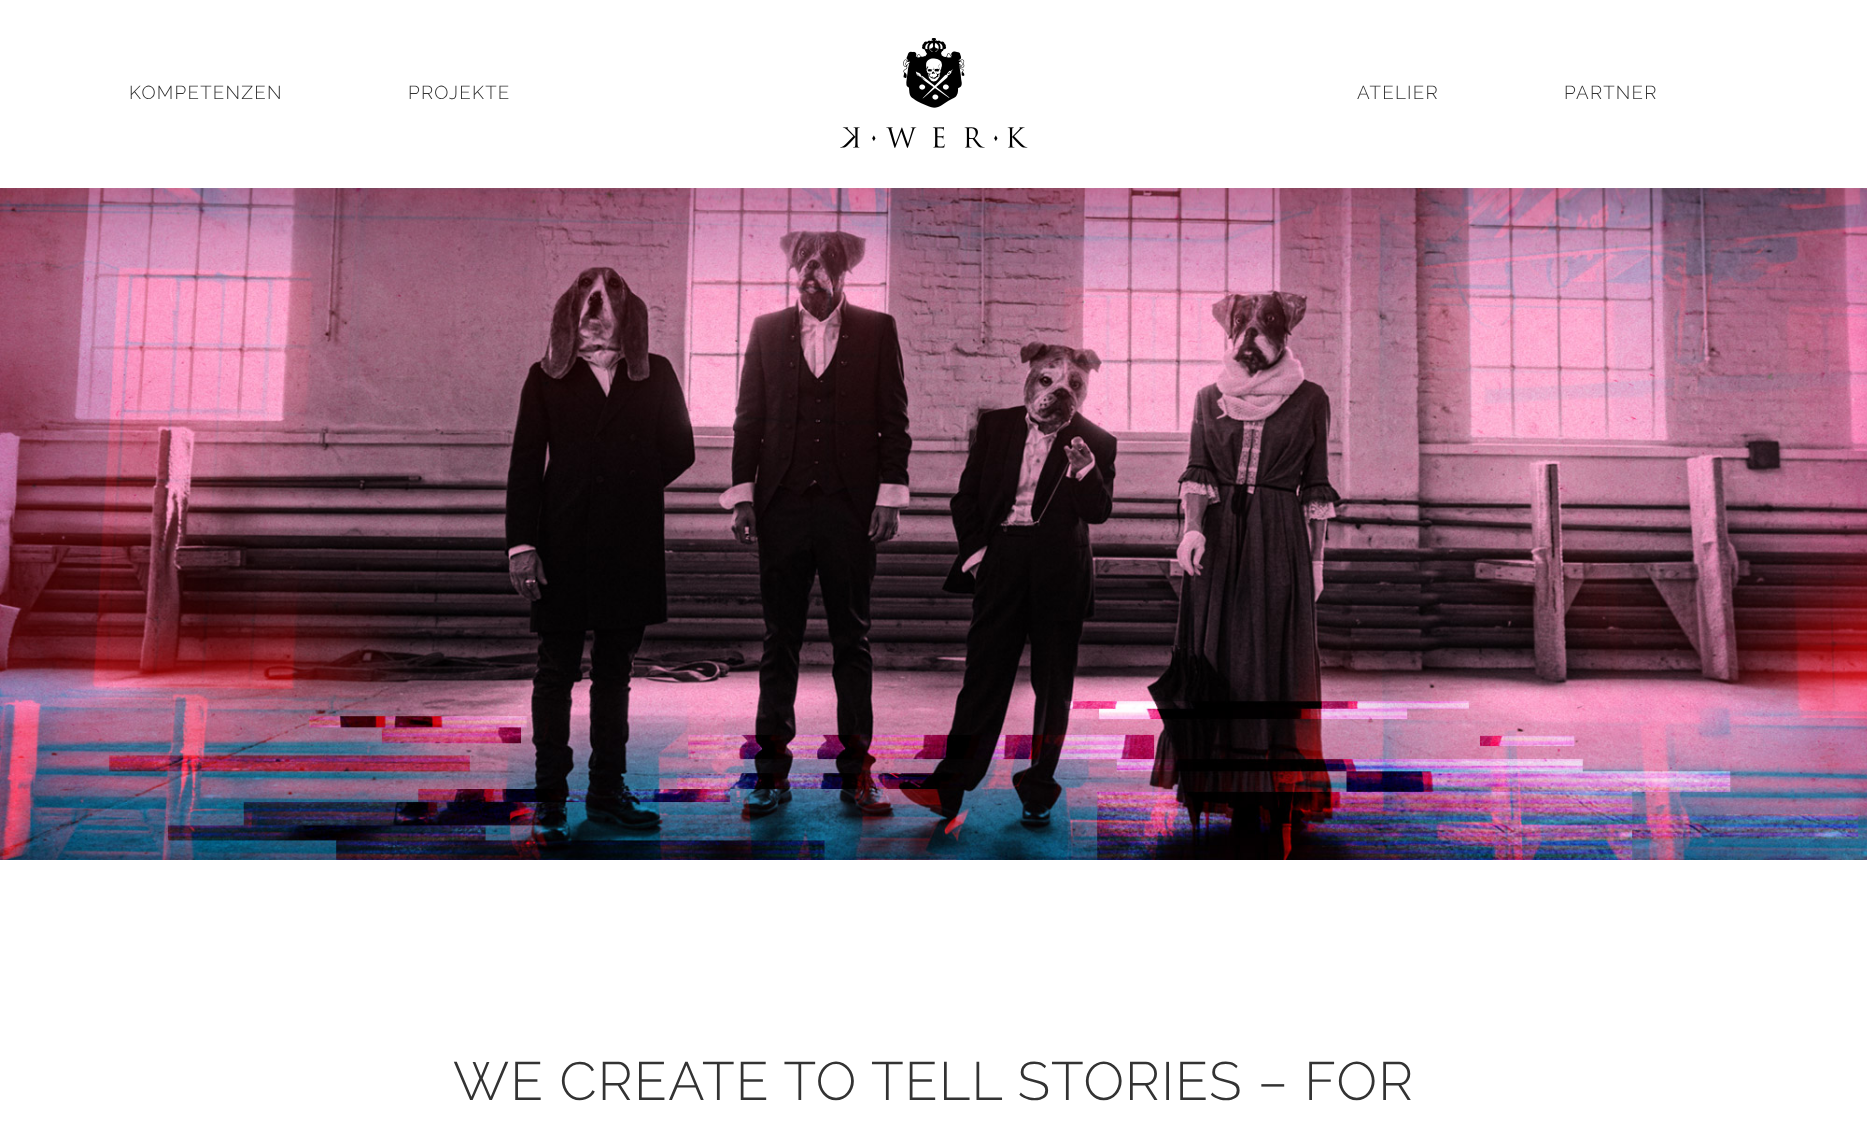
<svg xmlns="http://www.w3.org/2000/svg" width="1867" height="1146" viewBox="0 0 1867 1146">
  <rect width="100%" height="100%" fill="#fff"/>
  <image x="840" y="38" width="188" height="110" href="img/1.png"/>
  <image x="0" y="188" width="1867" height="672" href="img/2.png"/>
  <g font-family="Raleway" font-size="18.75" font-weight="300" letter-spacing="1.25" fill="#333">
    <text x="129" y="99">KOMPETENZEN</text>
    <text x="408" y="99">PROJEKTE</text>
    <text x="1357" y="99">ATELIER</text>
    <text x="1564" y="99">PARTNER</text>
  </g>
  <text x="453" y="1100" font-family="Raleway" font-size="53.75" font-weight="300" letter-spacing="1.25" fill="#333">WE CREATE TO TELL STORIES – FOR</text>
</svg>
